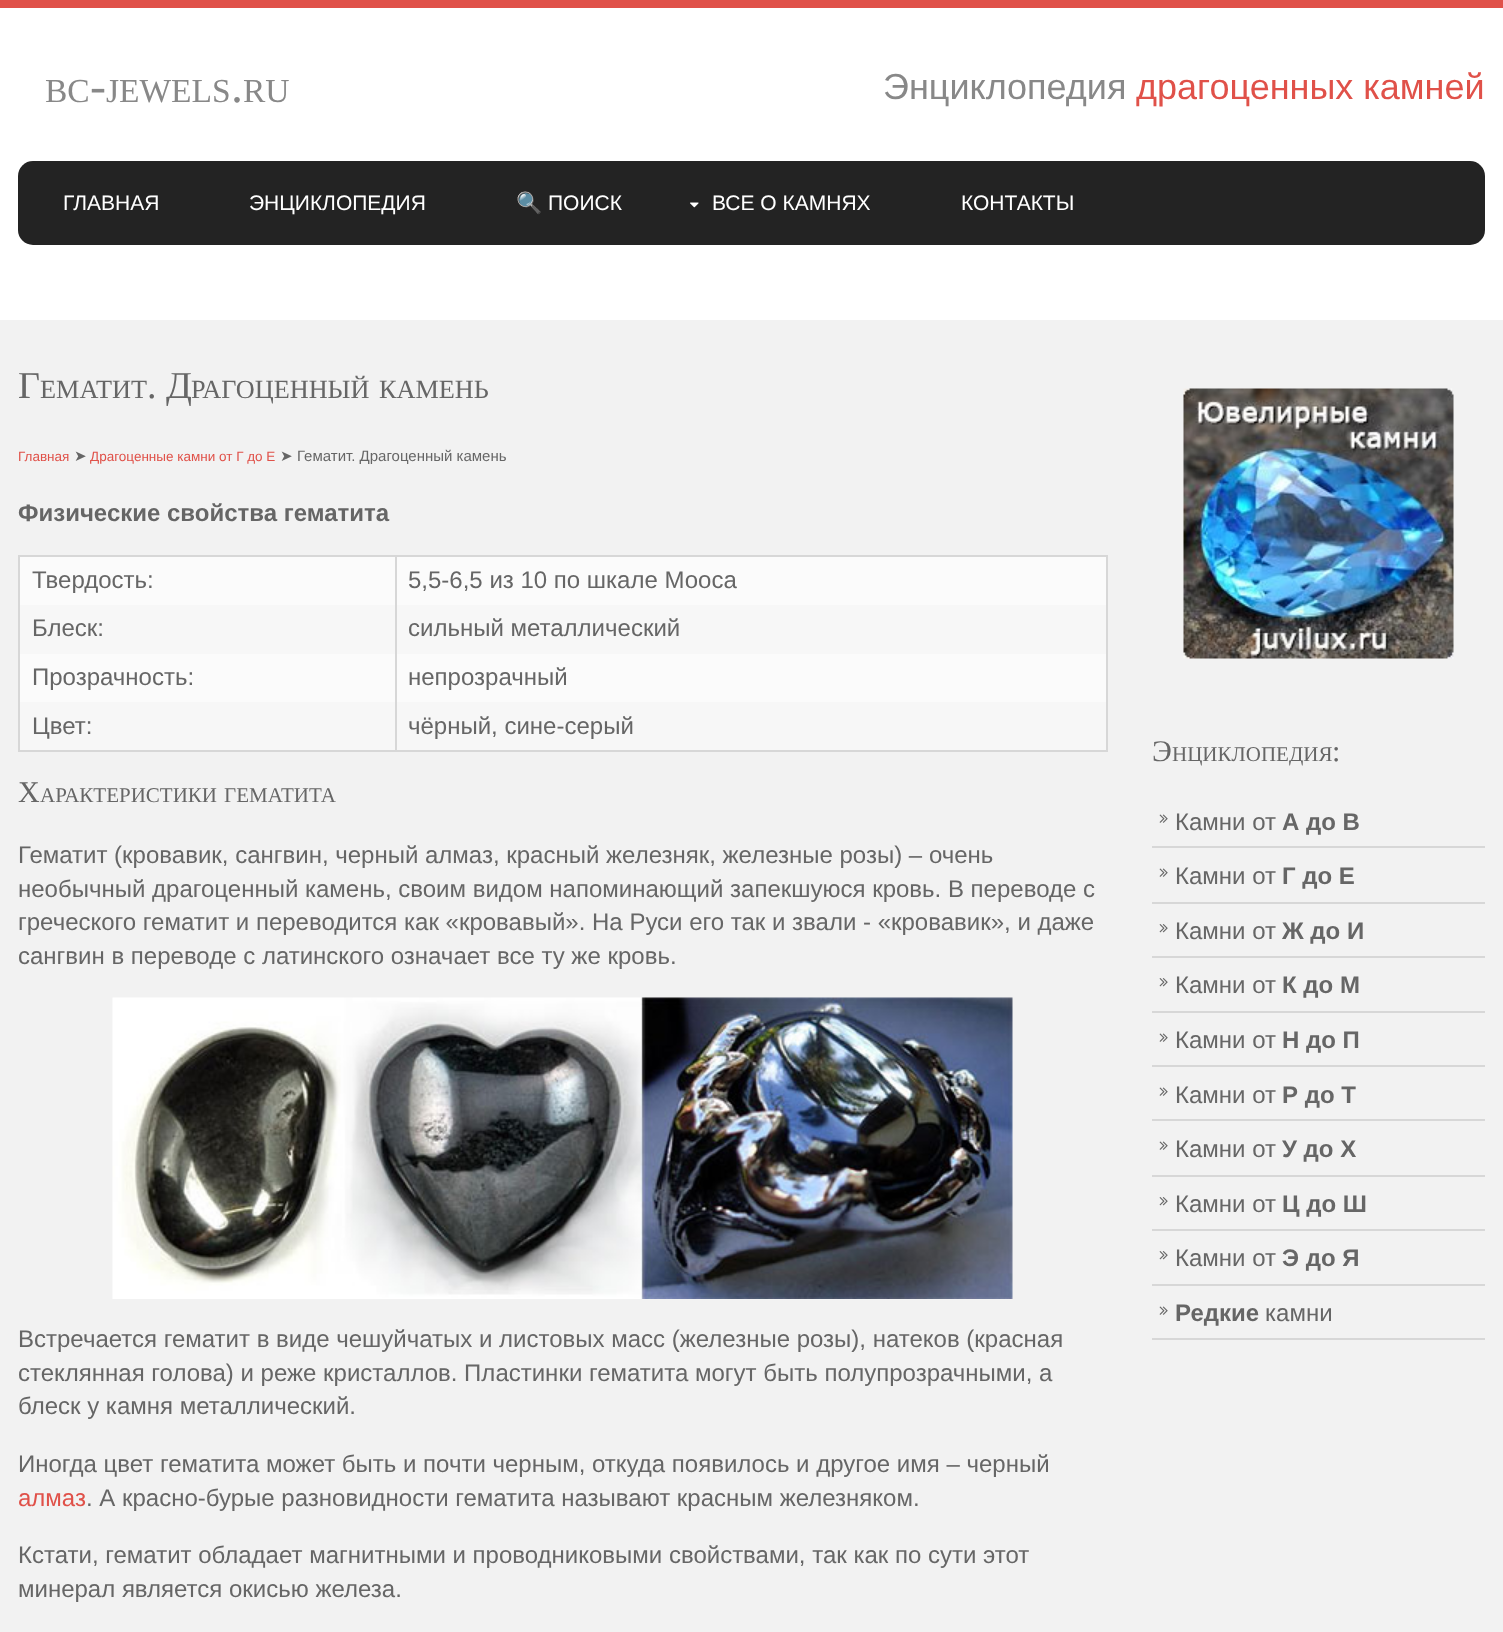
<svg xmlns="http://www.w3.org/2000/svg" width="1503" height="1632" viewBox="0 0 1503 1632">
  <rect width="100%" height="100%" fill="#fff"/>
  <path d="M0 0h1503v8H0z" fill="#e05149"/>
  <rect x="18" y="161" width="1467" height="84" rx="15" fill="#232323"/>
  <image x="690" y="202" width="9" height="6" href="img/1.png"/>
  <path d="M0 320h1503v1312H0z" fill="#f2f2f2"/>
  <path d="M18 555h1089v2H18z" fill="#d7d7d7"/>
  <path d="M1106 555h2v197H1106z" fill="#d7d7d7"/>
  <path d="M18 750h1089v2H18z" fill="#d7d7d7"/>
  <path d="M18 555h2v197H18z" fill="#d7d7d7"/>
  <path d="M20 557h1086v48H20z" fill="#fbfbfb"/>
  <path d="M20 605h1086v49H20z" fill="#f7f7f7"/>
  <path d="M20 654h1086v48H20z" fill="#fbfbfb"/>
  <path d="M20 702h1086v48H20z" fill="#f7f7f7"/>
  <path d="M395 555h2v197H395z" fill="#d7d7d7"/>
  <image x="112" y="997" width="901" height="302" href="img/2.png"/>
  <image x="1183" y="388" width="271" height="271" href="img/3.png"/>
  <path d="M1152 846h333v2H1152z" fill="#d7d7d7"/>
  <image x="1159" y="814" width="9" height="9" href="img/4.png"/>
  <path d="M1152 902h333v2H1152z" fill="#d7d7d7"/>
  <image x="1159" y="868" width="9" height="9" href="img/4.png"/>
  <path d="M1152 956h333v2H1152z" fill="#d7d7d7"/>
  <image x="1159" y="924" width="9" height="9" href="img/5.png"/>
  <path d="M1152 1011h333v2H1152z" fill="#d7d7d7"/>
  <image x="1159" y="978" width="9" height="9" href="img/5.png"/>
  <path d="M1152 1065h333v2H1152z" fill="#d7d7d7"/>
  <image x="1159" y="1033" width="9" height="9" href="img/4.png"/>
  <path d="M1152 1119h333v2H1152z" fill="#d7d7d7"/>
  <image x="1159" y="1087" width="9" height="9" href="img/4.png"/>
  <path d="M1152 1175h333v2H1152z" fill="#d7d7d7"/>
  <image x="1159" y="1141" width="9" height="9" href="img/4.png"/>
  <path d="M1152 1229h333v2H1152z" fill="#d7d7d7"/>
  <image x="1159" y="1197" width="9" height="9" href="img/5.png"/>
  <path d="M1152 1284h333v2H1152z" fill="#d7d7d7"/>
  <image x="1159" y="1251" width="9" height="9" href="img/5.png"/>
  <path d="M1152 1338h333v2H1152z" fill="#d7d7d7"/>
  <image x="1159" y="1306" width="9" height="9" href="img/4.png"/>
  <text x="45" y="102" font-family="Liberation Serif" font-size="33.5" fill="#888">BC</text>
  <text x="90" y="102" font-family="Liberation Serif" font-size="48" fill="#888">-</text>
  <g font-family="Liberation Serif" font-size="33.5" fill="#888">
    <text x="106" y="102">JEWELS</text>
    <text x="243" y="102">RU</text>
  </g>
  <text x="231" y="102" font-family="Liberation Serif" font-size="48" fill="#888">.</text>
  <text x="883" y="99" font-family="Liberation Sans" font-size="36" fill="#888">Энциклопедия</text>
  <text x="1136" y="99" font-family="Liberation Sans" font-size="36" fill="#e05149">драгоценных камней</text>
  <g font-family="Liberation Sans" font-size="21" fill="#fff">
    <text x="63" y="210">ГЛАВНАЯ</text>
    <text x="249" y="210">ЭНЦИКЛОПЕДИЯ</text>
  </g>
  <text x="516" y="210" font-family="Noto Color Emoji" font-size="21" fill="#fff">🔍</text>
  <g font-family="Liberation Sans" font-size="21" fill="#fff">
    <text x="548" y="210">ПОИСК</text>
    <text x="712" y="210">ВСЕ О КАМНЯХ</text>
    <text x="961" y="210">КОНТАКТЫ</text>
  </g>
  <text x="18" y="398" font-family="Liberation Serif" font-size="38" fill="#666">Г</text>
  <text x="40" y="398" font-family="Liberation Serif" font-size="26.25" fill="#666">ЕМАТИТ</text>
  <text x="147" y="398" font-family="Liberation Serif" font-size="38" fill="#666">. Д</text>
  <g font-family="Liberation Serif" font-size="26.25" fill="#666">
    <text x="191" y="398">РАГОЦЕННЫЙ</text>
    <text x="379" y="398">КАМЕНЬ</text>
  </g>
  <text x="18" y="461" font-family="Liberation Sans" font-size="13.5" fill="#e05149">Главная</text>
  <text x="74" y="461" font-family="DejaVu Sans" font-size="15" fill="#666">➤</text>
  <text x="90" y="461" font-family="Liberation Sans" font-size="13.5" fill="#e05149">Драгоценные камни от Г до Е</text>
  <text x="280" y="461" font-family="DejaVu Sans" font-size="15" fill="#666">➤</text>
  <text x="297" y="461" font-family="Liberation Sans" font-size="15" fill="#666">Гематит. Драгоценный камень</text>
  <text x="18" y="521" font-family="Liberation Sans" font-size="24" font-weight="bold" fill="#666">Физические свойства гематита</text>
  <g font-family="Liberation Sans" font-size="24" fill="#666">
    <text x="32" y="588">Твердость:</text>
    <text x="408" y="588">5,5-6,5 из 10 по шкале Мооса</text>
    <text x="32" y="636">Блеск:</text>
    <text x="408" y="636">сильный металлический</text>
    <text x="32" y="685">Прозрачность:</text>
    <text x="408" y="685">непрозрачный</text>
    <text x="32" y="734">Цвет:</text>
    <text x="408" y="734">чёрный, сине-серый</text>
  </g>
  <text x="18" y="802" font-family="Liberation Serif" font-size="30" fill="#666">Х</text>
  <g font-family="Liberation Serif" font-size="21" fill="#666">
    <text x="40" y="802">АРАКТЕРИСТИКИ</text>
    <text x="224" y="802">ГЕМАТИТА</text>
  </g>
  <g font-family="Liberation Sans" font-size="24" fill="#666">
    <text x="18" y="863">Гематит (кровавик, сангвин, черный алмаз, красный железняк, железные розы) – очень</text>
    <text x="18" y="897">необычный драгоценный камень, своим видом напоминающий запекшуюся кровь. В переводе с</text>
    <text x="18" y="930">греческого гематит и переводится как «кровавый». На Руси его так и звали - «кровавик», и даже</text>
    <text x="18" y="964">сангвин в переводе с латинского означает все ту же кровь.</text>
    <text x="18" y="1347">Встречается гематит в виде чешуйчатых и листовых масс (железные розы), натеков (красная</text>
    <text x="18" y="1381">стеклянная голова) и реже кристаллов. Пластинки гематита могут быть полупрозрачными, а</text>
    <text x="18" y="1414">блеск у камня металлический.</text>
    <text x="18" y="1472">Иногда цвет гематита может быть и почти черным, откуда появилось и другое имя – черный</text>
  </g>
  <text x="18" y="1506" font-family="Liberation Sans" font-size="24" fill="#e05149">алмаз</text>
  <g font-family="Liberation Sans" font-size="24" fill="#666">
    <text x="86" y="1506">. А красно-бурые разновидности гематита называют красным железняком.</text>
    <text x="18" y="1563">Кстати, гематит обладает магнитными и проводниковыми свойствами, так как по сути этот</text>
    <text x="18" y="1597">минерал является окисью железа.</text>
  </g>
  <text x="1152" y="761" font-family="Liberation Serif" font-size="30" fill="#666">Э</text>
  <text x="1172" y="761" font-family="Liberation Serif" font-size="21" fill="#666">НЦИКЛОПЕДИЯ</text>
  <text x="1332" y="761" font-family="Liberation Serif" font-size="30" fill="#666">:</text>
  <text x="1175" y="830" font-family="Liberation Sans" font-size="24" fill="#666">Камни от</text>
  <text x="1282" y="830" font-family="Liberation Sans" font-size="24" font-weight="bold" fill="#666">А до В</text>
  <text x="1175" y="884" font-family="Liberation Sans" font-size="24" fill="#666">Камни от</text>
  <text x="1282" y="884" font-family="Liberation Sans" font-size="24" font-weight="bold" fill="#666">Г до Е</text>
  <text x="1175" y="939" font-family="Liberation Sans" font-size="24" fill="#666">Камни от</text>
  <text x="1282" y="939" font-family="Liberation Sans" font-size="24" font-weight="bold" fill="#666">Ж до И</text>
  <text x="1175" y="993" font-family="Liberation Sans" font-size="24" fill="#666">Камни от</text>
  <text x="1282" y="993" font-family="Liberation Sans" font-size="24" font-weight="bold" fill="#666">К до М</text>
  <text x="1175" y="1048" font-family="Liberation Sans" font-size="24" fill="#666">Камни от</text>
  <text x="1282" y="1048" font-family="Liberation Sans" font-size="24" font-weight="bold" fill="#666">Н до П</text>
  <text x="1175" y="1103" font-family="Liberation Sans" font-size="24" fill="#666">Камни от</text>
  <text x="1282" y="1103" font-family="Liberation Sans" font-size="24" font-weight="bold" fill="#666">Р до Т</text>
  <text x="1175" y="1157" font-family="Liberation Sans" font-size="24" fill="#666">Камни от</text>
  <text x="1282" y="1157" font-family="Liberation Sans" font-size="24" font-weight="bold" fill="#666">У до Х</text>
  <text x="1175" y="1212" font-family="Liberation Sans" font-size="24" fill="#666">Камни от</text>
  <text x="1282" y="1212" font-family="Liberation Sans" font-size="24" font-weight="bold" fill="#666">Ц до Ш</text>
  <text x="1175" y="1266" font-family="Liberation Sans" font-size="24" fill="#666">Камни от</text>
  <g font-family="Liberation Sans" font-size="24" font-weight="bold" fill="#666">
    <text x="1282" y="1266">Э до Я</text>
    <text x="1175" y="1321">Редкие</text>
  </g>
  <text x="1265" y="1321" font-family="Liberation Sans" font-size="24" fill="#666">камни</text>
</svg>
